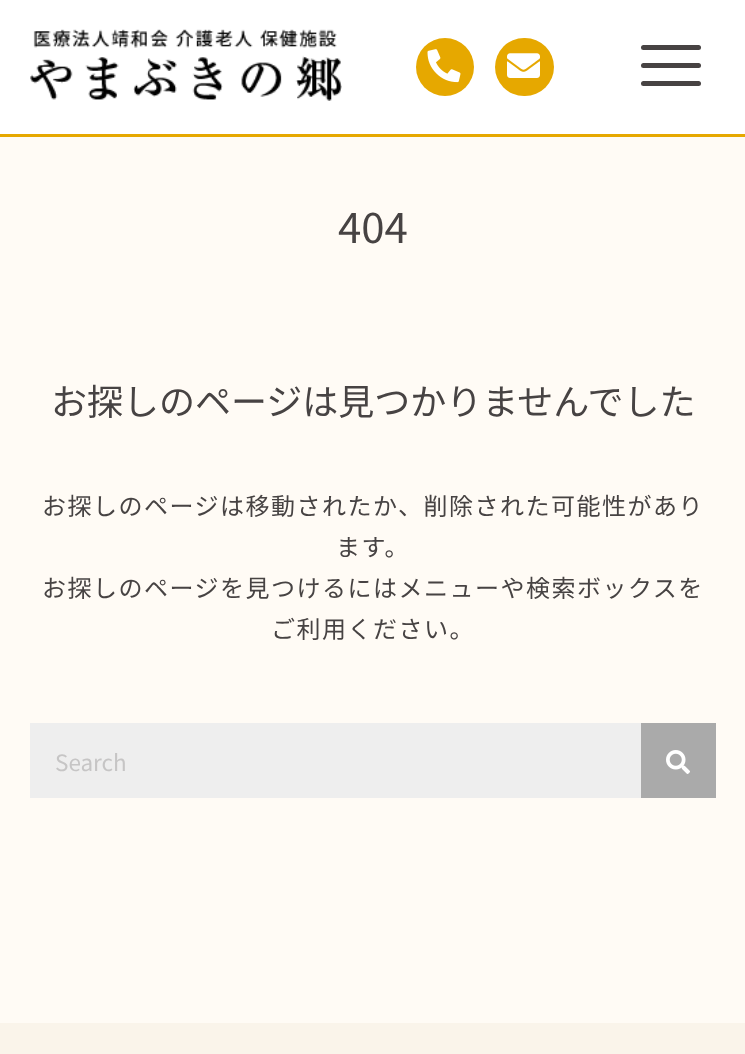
<svg xmlns="http://www.w3.org/2000/svg" width="745" height="1054" viewBox="0 0 745 1054">
  <rect width="100%" height="100%" fill="#fffbf5"/>
  <path d="M0 0h745v134H0z" fill="#fff"/>
  <path d="M0 134h745v3H0z" fill="#e6a800"/>
  <image x="30" y="29" width="312" height="72" href="img/1.png"/>
  <circle cx="445" cy="67" r="29" fill="#e6a800"/>
  <image x="427" y="49" width="34" height="34" href="img/2.png"/>
  <rect x="495" y="38" width="59" height="58" rx="29" fill="#e6a800"/>
  <image x="507" y="53" width="33" height="25" href="img/3.png"/>
  <rect x="641" y="63" width="60" height="5" rx="2.5" fill="#474343"/>
  <rect x="641" y="45" width="60" height="5" rx="2.5" fill="#474343"/>
  <rect x="641" y="81" width="60" height="5" rx="2.5" fill="#474343"/>
  <path d="M30 723h611v75H30z" fill="#eee"/>
  <path d="M641 723h75v75H641z" fill="#aaa"/>
  <image x="666" y="750" width="24" height="24" href="img/4.png"/>
  <path d="M0 1023h745v31H0z" fill="#faf4ea"/>
  <text x="338" y="243" font-family="Noto Sans JP" font-size="42" fill="#474343">404</text>
  <text x="51" y="415" font-family="Noto Sans JP" font-size="36" fill="#474343">お探しのページは見つかりませんでした</text>
  <g font-family="Noto Sans JP" font-size="24" letter-spacing="1.5" fill="#474343">
    <text x="42" y="515">お探しのページは移動されたか、削除された可能性があり</text>
    <text x="336" y="556">ます。</text>
    <text x="42" y="597">お探しのページを見つけるにはメニューや検索ボックスを</text>
    <text x="271" y="638">ご利用ください。</text>
  </g>
  <text x="55" y="771" font-family="Noto Sans JP" font-size="22.5" fill="#c6c5c5">Search</text>
</svg>
